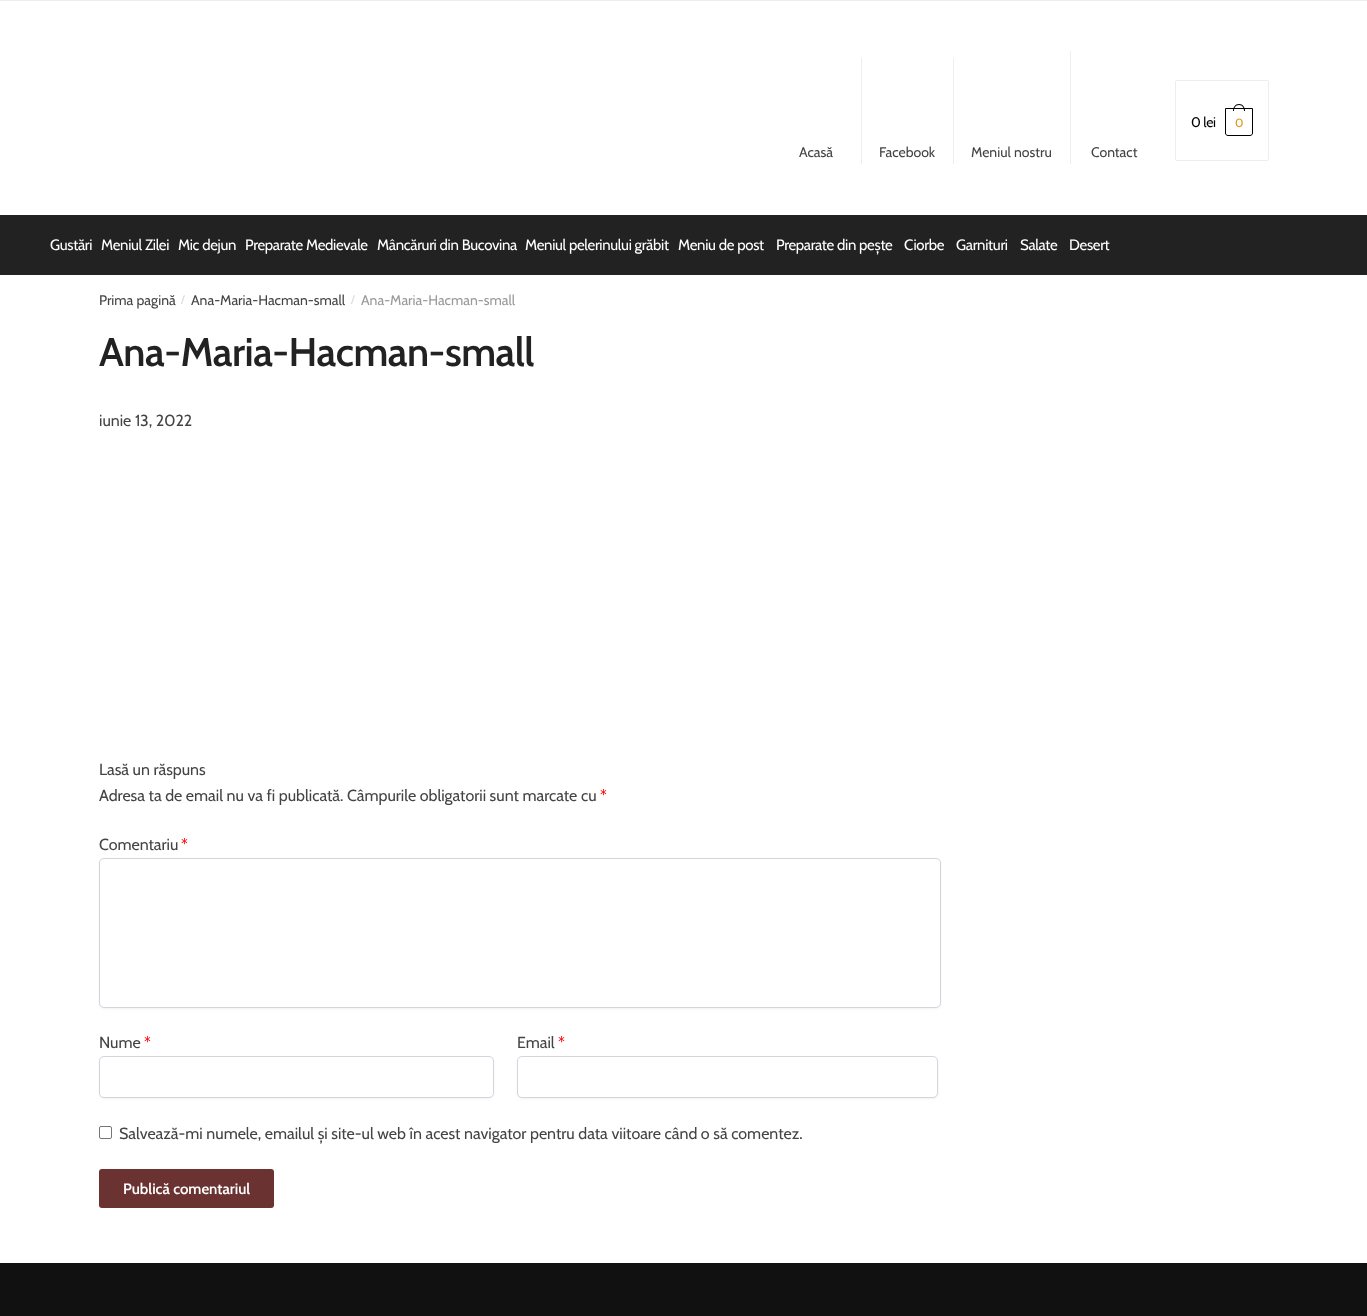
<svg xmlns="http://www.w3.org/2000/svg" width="1367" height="1316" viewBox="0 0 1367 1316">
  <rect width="100%" height="100%" fill="#fff"/>
  <path d="M0 0h1367v1H0z" fill="#eee"/>
  <rect x="1175.5" y="80.5" width="93" height="80" rx="1.5" fill="none" stroke="#eee"/>
  <path d="M1225.5 108.5H1252.5V133C1252.5 134.5 1251.5 135.5 1250 135.5H1228C1226.5 135.5 1225.5 134.5 1225.5 133Z" fill="none" stroke="#000"/>
  <path d="M1239 104C1243 104 1245 107.5 1245 111H1233C1233 107.5 1235 104 1239 104ZM1239 105C1242.5 105 1244 108 1244 111H1234C1234 108 1235.5 105 1239 105Z" fill="#000" fill-rule="evenodd"/>
  <path d="M861 58h1v106H861z" fill="#eee"/>
  <path d="M953 58h1v106H953z" fill="#eee"/>
  <path d="M1070 51h1v113H1070z" fill="#eee"/>
  <path d="M0 215h1367v60H0z" fill="#222"/>
  <rect x="99" y="859" width="842" height="150" rx="5" fill="#0000000d" filter="blur(1px)"/>
  <rect x="99.5" y="858.5" width="841" height="149" rx="4.5" fill="#fff" stroke="#d2d6dc"/>
  <rect x="99" y="1057" width="395" height="42" rx="5" fill="#0000000d" filter="blur(1px)"/>
  <rect x="99.5" y="1056.5" width="394" height="41" rx="4.5" fill="#fff" stroke="#d2d6dc"/>
  <rect x="517" y="1057" width="421" height="42" rx="5" fill="#0000000d" filter="blur(1px)"/>
  <rect x="517.5" y="1056.5" width="420" height="41" rx="4.5" fill="#fff" stroke="#d2d6dc"/>
  <rect x="99.5" y="1126.5" width="12" height="12" rx="1.5" fill="none" stroke="#767676"/>
  <rect x="99" y="1169" width="175" height="39" rx="3" fill="#6b3232"/>
  <path d="M0 1263h1367v53H0z" fill="#111"/>
  <text x="1191" y="127" font-family="Cabin" font-size="14" letter-spacing="-0.3" fill="#000">0 lei</text>
  <text x="1235" y="127" font-family="Cabin" font-size="12" letter-spacing="-1" fill="#dc9814">0</text>
  <g font-family="Cabin" font-size="14" fill="#444">
    <text x="799" y="157">Acasă</text>
    <text x="879" y="157">Facebook</text>
    <text x="971" y="157">Meniul nostru</text>
    <text x="1091" y="157">Contact</text>
  </g>
  <g font-family="Cabin" font-size="15" letter-spacing="-0.3" fill="#fff">
    <text x="50" y="250">Gustări</text>
    <text x="101" y="250">Meniul Zilei</text>
    <text x="178" y="250">Mic dejun</text>
    <text x="245" y="250">Preparate Medievale</text>
    <text x="377" y="250">Mâncăruri din Bucovina</text>
    <text x="525" y="250">Meniul pelerinului grăbit</text>
    <text x="678" y="250">Meniu de post</text>
    <text x="776" y="250">Preparate din pește</text>
    <text x="904" y="250">Ciorbe</text>
    <text x="956" y="250">Garnituri</text>
    <text x="1020" y="250">Salate</text>
    <text x="1069" y="250">Desert</text>
  </g>
  <text x="99" y="305" font-family="Cabin" font-size="14" fill="#444">Prima pagină</text>
  <text x="181" y="303" font-family="Cabin" font-size="11" fill="#d6d6d6">/</text>
  <text x="191" y="305" font-family="Cabin" font-size="14" fill="#444">Ana-Maria-Hacman-small</text>
  <text x="351" y="303" font-family="Cabin" font-size="11" fill="#d6d6d6">/</text>
  <text x="361" y="305" font-family="Cabin" font-size="14" fill="#999">Ana-Maria-Hacman-small</text>
  <text x="99" y="366" font-family="Cabin" font-size="40" font-weight="600" letter-spacing="-0.5" fill="#222">Ana-Maria-Hacman-small</text>
  <g font-family="Cabin" font-size="16" fill="#444">
    <text x="99" y="426">iunie 13, 2022</text>
    <text x="99" y="775">Lasă un răspuns</text>
    <text x="99" y="801">Adresa ta de email nu va fi publicată. Câmpurile obligatorii sunt marcate cu</text>
  </g>
  <text x="600" y="801" font-family="Cabin" font-size="16" fill="#f00">*</text>
  <text x="99" y="850" font-family="Cabin" font-size="16" fill="#444">Comentariu</text>
  <text x="181" y="850" font-family="Cabin" font-size="16" fill="#f00">*</text>
  <text x="99" y="1048" font-family="Cabin" font-size="16" fill="#444">Nume</text>
  <text x="144" y="1048" font-family="Cabin" font-size="16" fill="#f00">*</text>
  <text x="517" y="1048" font-family="Cabin" font-size="16" fill="#444">Email</text>
  <text x="558" y="1048" font-family="Cabin" font-size="16" fill="#f00">*</text>
  <text x="119" y="1139" font-family="Cabin" font-size="16" fill="#444">Salvează-mi numele, emailul și site-ul web în acest navigator pentru data viitoare când o să comentez.</text>
  <text x="123" y="1194" font-family="Cabin" font-size="15" font-weight="600" fill="#fff">Publică comentariul</text>
</svg>
